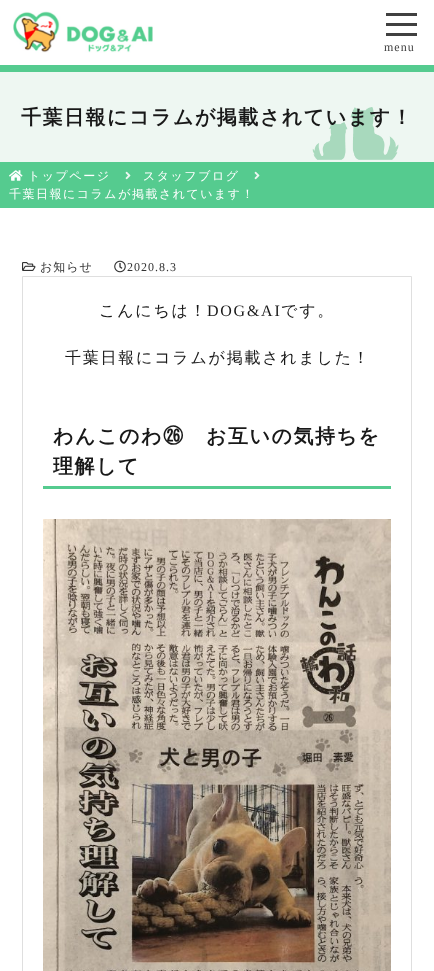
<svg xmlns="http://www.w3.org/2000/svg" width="434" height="971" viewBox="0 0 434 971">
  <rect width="100%" height="100%" fill="#fff"/>
  <image x="13" y="11" width="140" height="42" href="img/1.png"/>
  <path d="M386 13h31v3H386z" fill="#404040"/>
  <path d="M386 23h31v3H386z" fill="#404040"/>
  <path d="M386 33h31v3H386z" fill="#404040"/>
  <path d="M0 72h434v90H0z" fill="#eef7f2"/>
  <image x="312" y="107" width="87" height="53" href="img/2.png"/>
  <path d="M0 65h434v7H0z" fill="#55cb8f"/>
  <path d="M0 162h434v46H0z" fill="#55cb8f"/>
  <image x="9" y="170" width="14" height="11" href="img/3.png"/>
  <image x="125" y="171" width="6" height="9" href="img/4.png"/>
  <image x="254" y="171" width="6" height="9" href="img/4.png"/>
  <image x="22" y="262" width="14" height="9" href="img/5.png"/>
  <image x="114" y="260" width="12" height="13" href="img/6.png"/>
  <path d="M22.5 276.5h389v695H22.5z" fill="none" stroke="#dfdfdf"/>
  <path d="M43 486h348v3H43z" fill="#55cb8f"/>
  <image x="43" y="519" width="348" height="452" href="img/7.png"/>
  <text x="384" y="51" font-family="Liberation Serif" font-size="12" letter-spacing="1" fill="#404040">menu</text>
  <text x="21" y="124" font-family="WenQuanYi Zen Hei" font-size="20" font-weight="bold" letter-spacing="1.5" fill="#191919">千葉日報にコラムが掲載されています！</text>
  <g font-family="WenQuanYi Zen Hei" font-size="12" font-weight="500" letter-spacing="1.5" fill="#fff">
    <text x="28" y="180">トップページ</text>
    <text x="143" y="180">スタッフブログ</text>
    <text x="9" y="198">千葉日報にコラムが掲載されています！</text>
  </g>
  <text x="40" y="271" font-family="WenQuanYi Zen Hei" font-size="12" font-weight="500" letter-spacing="1" fill="#333">お知らせ</text>
  <text x="127" y="271" font-family="Liberation Serif" font-size="12" letter-spacing="1" fill="#333">2020.8.3</text>
  <text x="99" y="316" font-family="WenQuanYi Zen Hei" font-size="16" font-weight="500" letter-spacing="1.75" fill="#191919">こんにちは！</text>
  <text x="207" y="316" font-family="Liberation Serif" font-size="16" letter-spacing="1.75" fill="#191919">DOG&amp;AI</text>
  <g font-family="WenQuanYi Zen Hei" font-size="16" font-weight="500" letter-spacing="1.75" fill="#191919">
    <text x="281" y="316">です。</text>
    <text x="65" y="363">千葉日報にコラムが掲載されました！</text>
  </g>
  <text x="53" y="443" font-family="WenQuanYi Zen Hei" font-size="20" font-weight="bold" letter-spacing="1.5" fill="#191919">わんこのわ</text>
  <text x="163" y="443" font-family="IPAPGothic" font-size="20" font-weight="bold" letter-spacing="1.5" fill="#191919">㉖</text>
  <g font-family="WenQuanYi Zen Hei" font-size="20" font-weight="bold" letter-spacing="1.5" fill="#191919">
    <text x="206" y="443">お互いの気持ちを</text>
    <text x="53" y="473">理解して</text>
  </g>
</svg>
